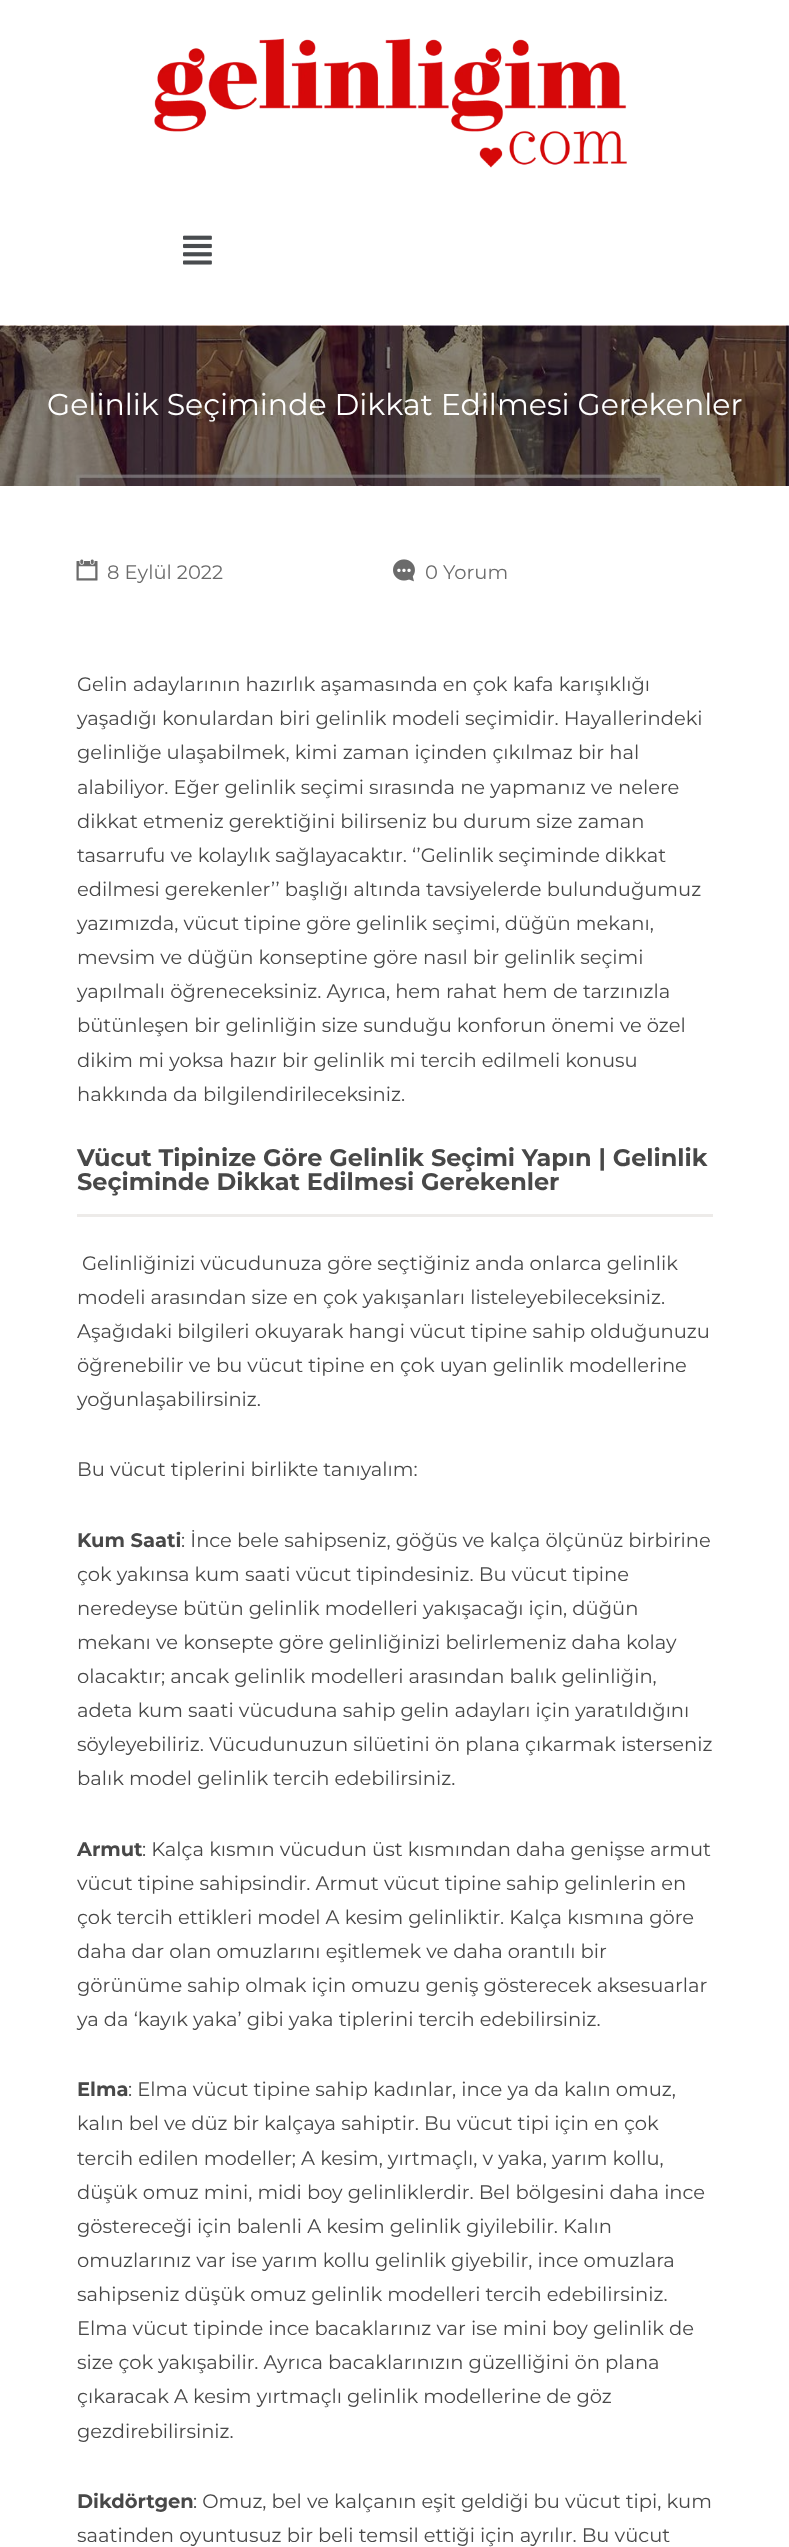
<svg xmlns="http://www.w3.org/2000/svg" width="789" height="2547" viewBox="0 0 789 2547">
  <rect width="100%" height="100%" fill="#fff"/>
  <image x="154" y="38" width="473" height="130" href="img/1.png"/>
  <image x="183" y="235" width="29" height="30" href="img/2.png"/>
  <image x="0" y="325" width="789" height="161" href="img/3.png"/>
  <image x="76" y="559" width="22" height="22" href="img/4.png"/>
  <image x="393" y="559" width="22" height="23" href="img/5.png"/>
  <path d="M77 1214h636v3H77z" fill="#edebe9"/>
  <text x="47" y="415" font-family="Montserrat" font-size="30" fill="#fff">Gelinlik Seçiminde Dikkat Edilmesi Gerekenler</text>
  <g font-family="Montserrat" font-size="19.5" fill="#6b6b6b">
    <text x="107" y="579">8 Eylül 2022</text>
    <text x="425" y="579">0 Yorum</text>
  </g>
  <g font-family="Montserrat" font-size="19.5" fill="#484848">
    <text x="77" y="691">Gelin adaylarının hazırlık aşamasında en çok kafa karışıklığı</text>
    <text x="77" y="725">yaşadığı konulardan biri gelinlik modeli seçimidir. Hayallerindeki</text>
    <text x="77" y="759">gelinliğe ulaşabilmek, kimi zaman içinden çıkılmaz bir hal</text>
    <text x="77" y="794">alabiliyor. Eğer gelinlik seçimi sırasında ne yapmanız ve nelere</text>
    <text x="77" y="828">dikkat etmeniz gerektiğini bilirseniz bu durum size zaman</text>
    <text x="77" y="862">tasarrufu ve kolaylık sağlayacaktır. ‘’Gelinlik seçiminde dikkat</text>
    <text x="77" y="896">edilmesi gerekenler’’ başlığı altında tavsiyelerde bulunduğumuz</text>
    <text x="77" y="930">yazımızda, vücut tipine göre gelinlik seçimi, düğün mekanı,</text>
    <text x="77" y="964">mevsim ve düğün konseptine göre nasıl bir gelinlik seçimi</text>
    <text x="77" y="998">yapılmalı öğreneceksiniz. Ayrıca, hem rahat hem de tarzınızla</text>
    <text x="77" y="1032">bütünleşen bir gelinliğin size sunduğu konforun önemi ve özel</text>
    <text x="77" y="1067">dikim mi yoksa hazır bir gelinlik mi tercih edilmeli konusu</text>
    <text x="77" y="1101">hakkında da bilgilendirileceksiniz.</text>
  </g>
  <g font-family="Montserrat" font-size="24" font-weight="bold" fill="#484848">
    <text x="77" y="1166">Vücut Tipinize Göre Gelinlik Seçimi Yapın | Gelinlik</text>
    <text x="77" y="1190">Seçiminde Dikkat Edilmesi Gerekenler</text>
  </g>
  <g font-family="Montserrat" font-size="19.5" fill="#484848">
    <text x="82" y="1270">Gelinliğinizi vücudunuza göre seçtiğiniz anda onlarca gelinlik</text>
    <text x="77" y="1304">modeli arasından size en çok yakışanları listeleyebileceksiniz.</text>
    <text x="77" y="1338">Aşağıdaki bilgileri okuyarak hangi vücut tipine sahip olduğunuzu</text>
    <text x="77" y="1372">öğrenebilir ve bu vücut tipine en çok uyan gelinlik modellerine</text>
    <text x="77" y="1406">yoğunlaşabilirsiniz.</text>
    <text x="77" y="1476">Bu vücut tiplerini birlikte tanıyalım:</text>
  </g>
  <text x="77" y="1547" font-family="Montserrat" font-size="19.5" font-weight="bold" fill="#484848">Kum Saati</text>
  <g font-family="Montserrat" font-size="19.5" fill="#484848">
    <text x="181" y="1547">: İnce bele sahipseniz, göğüs ve kalça ölçünüz birbirine</text>
    <text x="77" y="1581">çok yakınsa kum saati vücut tipindesiniz. Bu vücut tipine</text>
    <text x="77" y="1615">neredeyse bütün gelinlik modelleri yakışacağı için, düğün</text>
    <text x="77" y="1649">mekanı ve konsepte göre gelinliğinizi belirlemeniz daha kolay</text>
    <text x="77" y="1683">olacaktır; ancak gelinlik modelleri arasından balık gelinliğin,</text>
    <text x="77" y="1717">adeta kum saati vücuduna sahip gelin adayları için yaratıldığını</text>
    <text x="77" y="1751">söyleyebiliriz. Vücudunuzun silüetini ön plana çıkarmak isterseniz</text>
    <text x="77" y="1785">balık model gelinlik tercih edebilirsiniz.</text>
  </g>
  <text x="77" y="1856" font-family="Montserrat" font-size="19.5" font-weight="bold" fill="#484848">Armut</text>
  <g font-family="Montserrat" font-size="19.5" fill="#484848">
    <text x="142" y="1856">: Kalça kısmın vücudun üst kısmından daha genişse armut</text>
    <text x="77" y="1890">vücut tipine sahipsindir. Armut vücut tipine sahip gelinlerin en</text>
    <text x="77" y="1924">çok tercih ettikleri model A kesim gelinliktir. Kalça kısmına göre</text>
    <text x="77" y="1958">daha dar olan omuzlarını eşitlemek ve daha orantılı bir</text>
    <text x="77" y="1992">görünüme sahip olmak için omuzu geniş gösterecek aksesuarlar</text>
    <text x="77" y="2026">ya da ‘kayık yaka’ gibi yaka tiplerini tercih edebilirsiniz.</text>
  </g>
  <text x="77" y="2096" font-family="Montserrat" font-size="19.5" font-weight="bold" fill="#484848">Elma</text>
  <g font-family="Montserrat" font-size="19.5" fill="#484848">
    <text x="128" y="2096">: Elma vücut tipine sahip kadınlar, ince ya da kalın omuz,</text>
    <text x="77" y="2130">kalın bel ve düz bir kalçaya sahiptir. Bu vücut tipi için en çok</text>
    <text x="77" y="2165">tercih edilen modeller; A kesim, yırtmaçlı, v yaka, yarım kollu,</text>
    <text x="77" y="2199">düşük omuz mini, midi boy gelinliklerdir. Bel bölgesini daha ince</text>
    <text x="77" y="2233">göstereceği için balenli A kesim gelinlik giyilebilir. Kalın</text>
    <text x="77" y="2267">omuzlarınız var ise yarım kollu gelinlik giyebilir, ince omuzlara</text>
    <text x="77" y="2301">sahipseniz düşük omuz gelinlik modelleri tercih edebilirsiniz.</text>
    <text x="77" y="2335">Elma vücut tipinde ince bacaklarınız var ise mini boy gelinlik de</text>
    <text x="77" y="2369">size çok yakışabilir. Ayrıca bacaklarınızın güzelliğini ön plana</text>
    <text x="77" y="2403">çıkaracak A kesim yırtmaçlı gelinlik modellerine de göz</text>
    <text x="77" y="2438">gezdirebilirsiniz.</text>
  </g>
  <text x="77" y="2508" font-family="Montserrat" font-size="19.5" font-weight="bold" fill="#484848">Dikdörtgen</text>
  <g font-family="Montserrat" font-size="19.5" fill="#484848">
    <text x="193" y="2508">: Omuz, bel ve kalçanın eşit geldiği bu vücut tipi, kum</text>
    <text x="77" y="2542">saatinden oyuntusuz bir beli temsil ettiği için ayrılır. Bu vücut</text>
  </g>
</svg>
